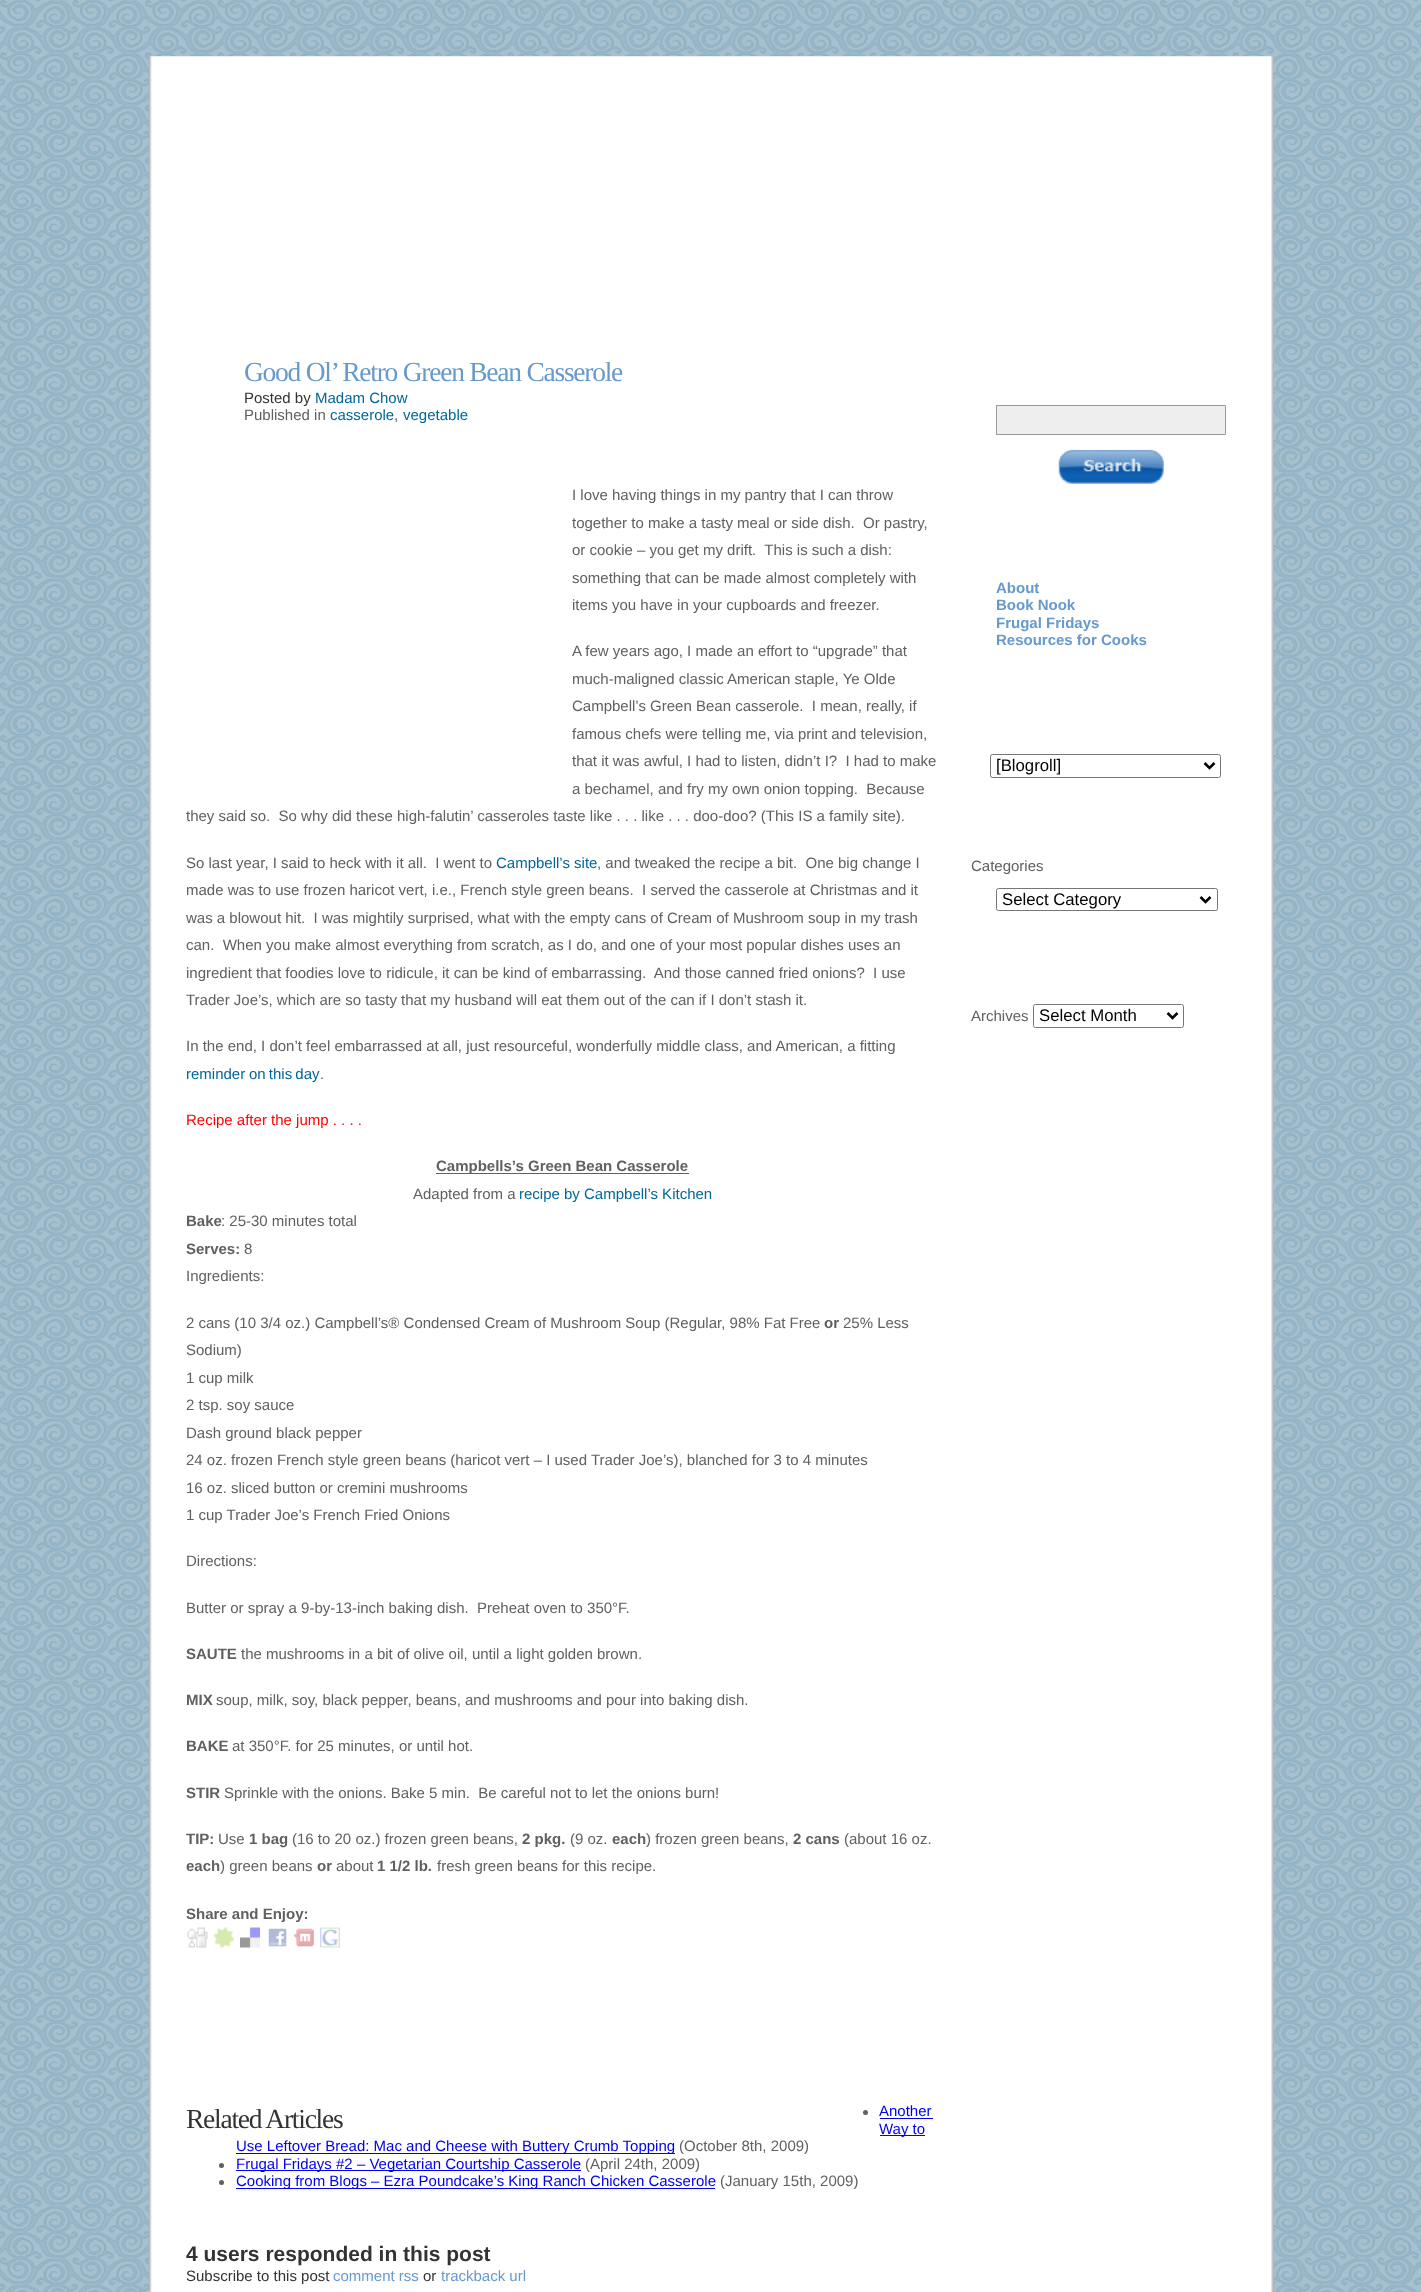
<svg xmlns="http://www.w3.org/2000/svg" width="1421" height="2292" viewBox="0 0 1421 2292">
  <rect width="100%" height="100%" fill="#fff"/>
  <image x="0" y="0" width="1421" height="2292" href="img/1.png"/>
  <image x="148" y="56" width="1126" height="269" href="img/2.png"/>
  <image x="148" y="325" width="1126" height="1967" href="img/3.png"/>
  <path d="M436 1173h253v1H436z" fill="#606060"/>
  <image x="187" y="1927" width="21" height="21" href="img/4.png"/>
  <image x="213" y="1927" width="21" height="21" href="img/5.png"/>
  <image x="240" y="1927" width="20" height="21" href="img/6.png"/>
  <image x="268" y="1928" width="19" height="19" href="img/7.png"/>
  <image x="293" y="1928" width="21" height="19" href="img/8.png"/>
  <image x="320" y="1927" width="20" height="21" href="img/9.png"/>
  <circle cx="865.5" cy="2112.5" r="2.5" fill="#606060"/>
  <path d="M880 2118h53v1H880z" fill="#00e"/>
  <path d="M880 2135h45v1H880z" fill="#00e"/>
  <path d="M236 2153h439v1H236z" fill="#00e"/>
  <circle cx="221.5" cy="2165.5" r="2.5" fill="#606060"/>
  <path d="M236 2170h345v1H236z" fill="#00e"/>
  <circle cx="221.5" cy="2182.5" r="2.5" fill="#606060"/>
  <path d="M236 2188h479v1H236z" fill="#00e"/>
  <path d="M996.5 405.5h229v29H996.5z" fill="#eee" stroke="#999"/>
  <image x="1058" y="449" width="106" height="35" href="img/10.png"/>
  <rect x="990.5" y="754.5" width="230" height="23" rx="2" fill="none" stroke="#767676"/>
  <path d="M1204.5 763L1209.5 768L1214.5 763" fill="none" stroke="#000" stroke-width="2.5"/>
  <rect x="996.5" y="888.5" width="221" height="22" rx="2" fill="none" stroke="#767676"/>
  <path d="M1200.5 897L1205.5 902L1210.5 897" fill="none" stroke="#000" stroke-width="2.5"/>
  <rect x="1033.5" y="1004.5" width="150" height="23" rx="2" fill="none" stroke="#767676"/>
  <path d="M1167.5 1013L1172.5 1018L1177.5 1013" fill="none" stroke="#000" stroke-width="2.5"/>
  <text x="244" y="381" font-family="Liberation Serif" font-size="27.5" letter-spacing="-1.25" fill="#69c">Good Ol’ Retro Green Bean Casserole</text>
  <text x="244" y="403" font-family="Liberation Sans" font-size="15" fill="#333">Posted by</text>
  <text x="315" y="403" font-family="Liberation Sans" font-size="15" fill="#069">Madam Chow</text>
  <text x="244" y="420" font-family="Liberation Sans" font-size="15" fill="#606060">Published in</text>
  <text x="330" y="420" font-family="Liberation Sans" font-size="15" fill="#069">casserole</text>
  <text x="394" y="420" font-family="Liberation Sans" font-size="15" fill="#606060">,</text>
  <text x="403" y="420" font-family="Liberation Sans" font-size="15" fill="#069">vegetable</text>
  <g font-family="Liberation Sans" font-size="15" fill="#606060">
    <text x="572" y="500">I love having things in my pantry that I can throw</text>
    <text x="572" y="528" xml:space="preserve">together to make a tasty meal or side dish.  Or pastry,</text>
    <text x="572" y="555" xml:space="preserve">or cookie – you get my drift.  This is such a dish:</text>
    <text x="572" y="583">something that can be made almost completely with</text>
    <text x="572" y="610">items you have in your cupboards and freezer.</text>
    <text x="572" y="656">A few years ago, I made an effort to “upgrade” that</text>
    <text x="572" y="684">much-maligned classic American staple, Ye Olde</text>
    <text x="572" y="711" xml:space="preserve">Campbell’s Green Bean casserole.  I mean, really, if</text>
    <text x="572" y="739">famous chefs were telling me, via print and television,</text>
    <text x="572" y="766" xml:space="preserve">that it was awful, I had to listen, didn’t I?  I had to make</text>
    <text x="572" y="794" xml:space="preserve">a bechamel, and fry my own onion topping.  Because</text>
    <text x="186" y="821" xml:space="preserve">they said so.  So why did these high-falutin’ casseroles taste like . . . like . . . doo-doo? (This IS a family site).</text>
    <text x="186" y="868" xml:space="preserve">So last year, I said to heck with it all.  I went to</text>
  </g>
  <text x="496" y="868" font-family="Liberation Sans" font-size="15" fill="#069">Campbell’s site</text>
  <g font-family="Liberation Sans" font-size="15" fill="#606060">
    <text x="597" y="868" xml:space="preserve">, and tweaked the recipe a bit.  One big change I</text>
    <text x="186" y="895" xml:space="preserve">made was to use frozen haricot vert, i.e., French style green beans.  I served the casserole at Christmas and it</text>
    <text x="186" y="923" xml:space="preserve">was a blowout hit.  I was mightily surprised, what with the empty cans of Cream of Mushroom soup in my trash</text>
    <text x="186" y="950" xml:space="preserve">can.  When you make almost everything from scratch, as I do, and one of your most popular dishes uses an</text>
    <text x="186" y="978" xml:space="preserve">ingredient that foodies love to ridicule, it can be kind of embarrassing.  And those canned fried onions?  I use</text>
    <text x="186" y="1005">Trader Joe’s, which are so tasty that my husband will eat them out of the can if I don’t stash it.</text>
    <text x="186" y="1051">In the end, I don’t feel embarrassed at all, just resourceful, wonderfully middle class, and American, a fitting</text>
  </g>
  <g font-family="Liberation Sans" font-size="15" fill="#069">
    <text x="186" y="1079">reminder</text>
    <text x="249" y="1079" word-spacing="-1">on this day</text>
  </g>
  <text x="320" y="1079" font-family="Liberation Sans" font-size="15" fill="#606060">.</text>
  <text x="186" y="1125" font-family="Liberation Sans" font-size="15" fill="#f00">Recipe after the jump . . . .</text>
  <text x="436" y="1171" font-family="Liberation Sans" font-size="15" font-weight="bold" fill="#606060">Campbells’s Green Bean Casserole</text>
  <text x="413" y="1199" font-family="Liberation Sans" font-size="15" fill="#606060">Adapted from a</text>
  <text x="519" y="1199" font-family="Liberation Sans" font-size="15" fill="#069">recipe by Campbell’s Kitchen</text>
  <text x="186" y="1226" font-family="Liberation Sans" font-size="15" font-weight="bold" fill="#606060">Bake</text>
  <text x="221" y="1226" font-family="Liberation Sans" font-size="15" fill="#606060">: 25-30 minutes total</text>
  <text x="186" y="1254" font-family="Liberation Sans" font-size="15" font-weight="bold" fill="#606060">Serves:</text>
  <g font-family="Liberation Sans" font-size="15" fill="#606060">
    <text x="244" y="1254">8</text>
    <text x="186" y="1281">Ingredients:</text>
    <text x="186" y="1328">2 cans (10 3/4 oz.) Campbell’s® Condensed Cream of Mushroom Soup (Regular, 98% Fat Free</text>
  </g>
  <text x="824" y="1328" font-family="Liberation Sans" font-size="15" font-weight="bold" fill="#606060">or</text>
  <g font-family="Liberation Sans" font-size="15" fill="#606060">
    <text x="843" y="1328">25% Less</text>
    <text x="186" y="1355">Sodium)</text>
    <text x="186" y="1383">1 cup milk</text>
    <text x="186" y="1410">2 tsp. soy sauce</text>
    <text x="186" y="1438">Dash ground black pepper</text>
    <text x="186" y="1465">24 oz. frozen French style green beans (haricot vert – I used Trader Joe’s), blanched for 3 to 4 minutes</text>
    <text x="186" y="1493">16 oz. sliced button or cremini mushrooms</text>
    <text x="186" y="1520">1 cup Trader Joe’s French Fried Onions</text>
    <text x="186" y="1566">Directions:</text>
    <text x="186" y="1613" xml:space="preserve">Butter or spray a 9-by-13-inch baking dish.  Preheat oven to 350°F.</text>
  </g>
  <text x="186" y="1659" font-family="Liberation Sans" font-size="15" font-weight="bold" fill="#606060">SAUTE</text>
  <text x="241" y="1659" font-family="Liberation Sans" font-size="15" fill="#606060">the mushrooms in a bit of olive oil, until a light golden brown.</text>
  <text x="186" y="1705" font-family="Liberation Sans" font-size="15" font-weight="bold" fill="#606060">MIX</text>
  <text x="216" y="1705" font-family="Liberation Sans" font-size="15" fill="#606060">soup, milk, soy, black pepper, beans, and mushrooms and pour into baking dish.</text>
  <text x="186" y="1751" font-family="Liberation Sans" font-size="15" font-weight="bold" fill="#606060">BAKE</text>
  <text x="232" y="1751" font-family="Liberation Sans" font-size="15" fill="#606060">at 350°F. for 25 minutes, or until hot.</text>
  <text x="186" y="1798" font-family="Liberation Sans" font-size="15" font-weight="bold" fill="#606060">STIR</text>
  <text x="224" y="1798" font-family="Liberation Sans" font-size="15" fill="#606060" xml:space="preserve">Sprinkle with the onions. Bake 5 min.  Be careful not to let the onions burn!</text>
  <text x="186" y="1844" font-family="Liberation Sans" font-size="15" font-weight="bold" fill="#606060">TIP:</text>
  <text x="218" y="1844" font-family="Liberation Sans" font-size="15" fill="#606060">Use</text>
  <text x="249" y="1844" font-family="Liberation Sans" font-size="15" font-weight="bold" fill="#606060">1 bag</text>
  <text x="292" y="1844" font-family="Liberation Sans" font-size="15" fill="#606060">(16 to 20 oz.) frozen green beans,</text>
  <text x="522" y="1844" font-family="Liberation Sans" font-size="15" font-weight="bold" fill="#606060">2 pkg.</text>
  <text x="570" y="1844" font-family="Liberation Sans" font-size="15" fill="#606060">(9 oz.</text>
  <text x="612" y="1844" font-family="Liberation Sans" font-size="15" font-weight="bold" fill="#606060">each</text>
  <text x="646" y="1844" font-family="Liberation Sans" font-size="15" fill="#606060">) frozen green beans,</text>
  <text x="793" y="1844" font-family="Liberation Sans" font-size="15" font-weight="bold" fill="#606060">2 cans</text>
  <text x="844" y="1844" font-family="Liberation Sans" font-size="15" fill="#606060">(about 16 oz.</text>
  <text x="186" y="1871" font-family="Liberation Sans" font-size="15" font-weight="bold" fill="#606060">each</text>
  <text x="220" y="1871" font-family="Liberation Sans" font-size="15" fill="#606060">) green beans</text>
  <text x="317" y="1871" font-family="Liberation Sans" font-size="15" font-weight="bold" fill="#606060">or</text>
  <text x="336" y="1871" font-family="Liberation Sans" font-size="15" fill="#606060">about</text>
  <text x="377" y="1871" font-family="Liberation Sans" font-size="15" font-weight="bold" fill="#606060">1 1/2 lb.</text>
  <text x="437" y="1871" font-family="Liberation Sans" font-size="15" fill="#606060">fresh green beans for this recipe.</text>
  <text x="186" y="1919" font-family="Liberation Sans" font-size="15" font-weight="bold" fill="#606060">Share and Enjoy:</text>
  <g font-family="Liberation Sans" font-size="15" fill="#00e">
    <text x="879" y="2116">Another</text>
    <text x="879" y="2134">Way to</text>
    <text x="236" y="2151">Use Leftover Bread: Mac and Cheese with Buttery Crumb Topping</text>
  </g>
  <text x="679" y="2151" font-family="Liberation Sans" font-size="15" fill="#606060">(October 8th, 2009)</text>
  <text x="236" y="2169" font-family="Liberation Sans" font-size="15" fill="#00e">Frugal Fridays #2 – Vegetarian Courtship Casserole</text>
  <text x="585" y="2169" font-family="Liberation Sans" font-size="15" fill="#606060">(April 24th, 2009)</text>
  <text x="236" y="2186" font-family="Liberation Sans" font-size="15" fill="#00e">Cooking from Blogs – Ezra Poundcake’s King Ranch Chicken Casserole</text>
  <text x="720" y="2186" font-family="Liberation Sans" font-size="15" fill="#606060">(January 15th, 2009)</text>
  <text x="186" y="2128" font-family="Liberation Serif" font-size="27.5" letter-spacing="-1.25" fill="#333">Related Articles</text>
  <text x="186" y="2261" font-family="Liberation Sans" font-size="21" font-weight="bold" fill="#333">4 users responded in this post</text>
  <text x="186" y="2281" font-family="Liberation Sans" font-size="15" fill="#333">Subscribe to this post</text>
  <text x="333" y="2281" font-family="Liberation Sans" font-size="15" fill="#69c">comment rss</text>
  <text x="423" y="2281" font-family="Liberation Sans" font-size="15" fill="#333">or</text>
  <text x="441" y="2281" font-family="Liberation Sans" font-size="15" fill="#69c">trackback url</text>
  <g font-family="Liberation Sans" font-size="15" font-weight="bold" fill="#69c">
    <text x="996" y="593">About</text>
    <text x="996" y="610">Book Nook</text>
    <text x="996" y="628">Frugal Fridays</text>
    <text x="996" y="645">Resources for Cooks</text>
  </g>
  <text x="996" y="771" font-family="Liberation Sans" font-size="16.75" fill="#000">[Blogroll]</text>
  <text x="971" y="871" font-family="Liberation Sans" font-size="15" fill="#606060">Categories</text>
  <text x="1002" y="905" font-family="Liberation Sans" font-size="16.75" fill="#000">Select Category</text>
  <text x="971" y="1021" font-family="Liberation Sans" font-size="15" fill="#606060">Archives</text>
  <text x="1039" y="1021" font-family="Liberation Sans" font-size="16.75" fill="#000">Select Month</text>
</svg>
